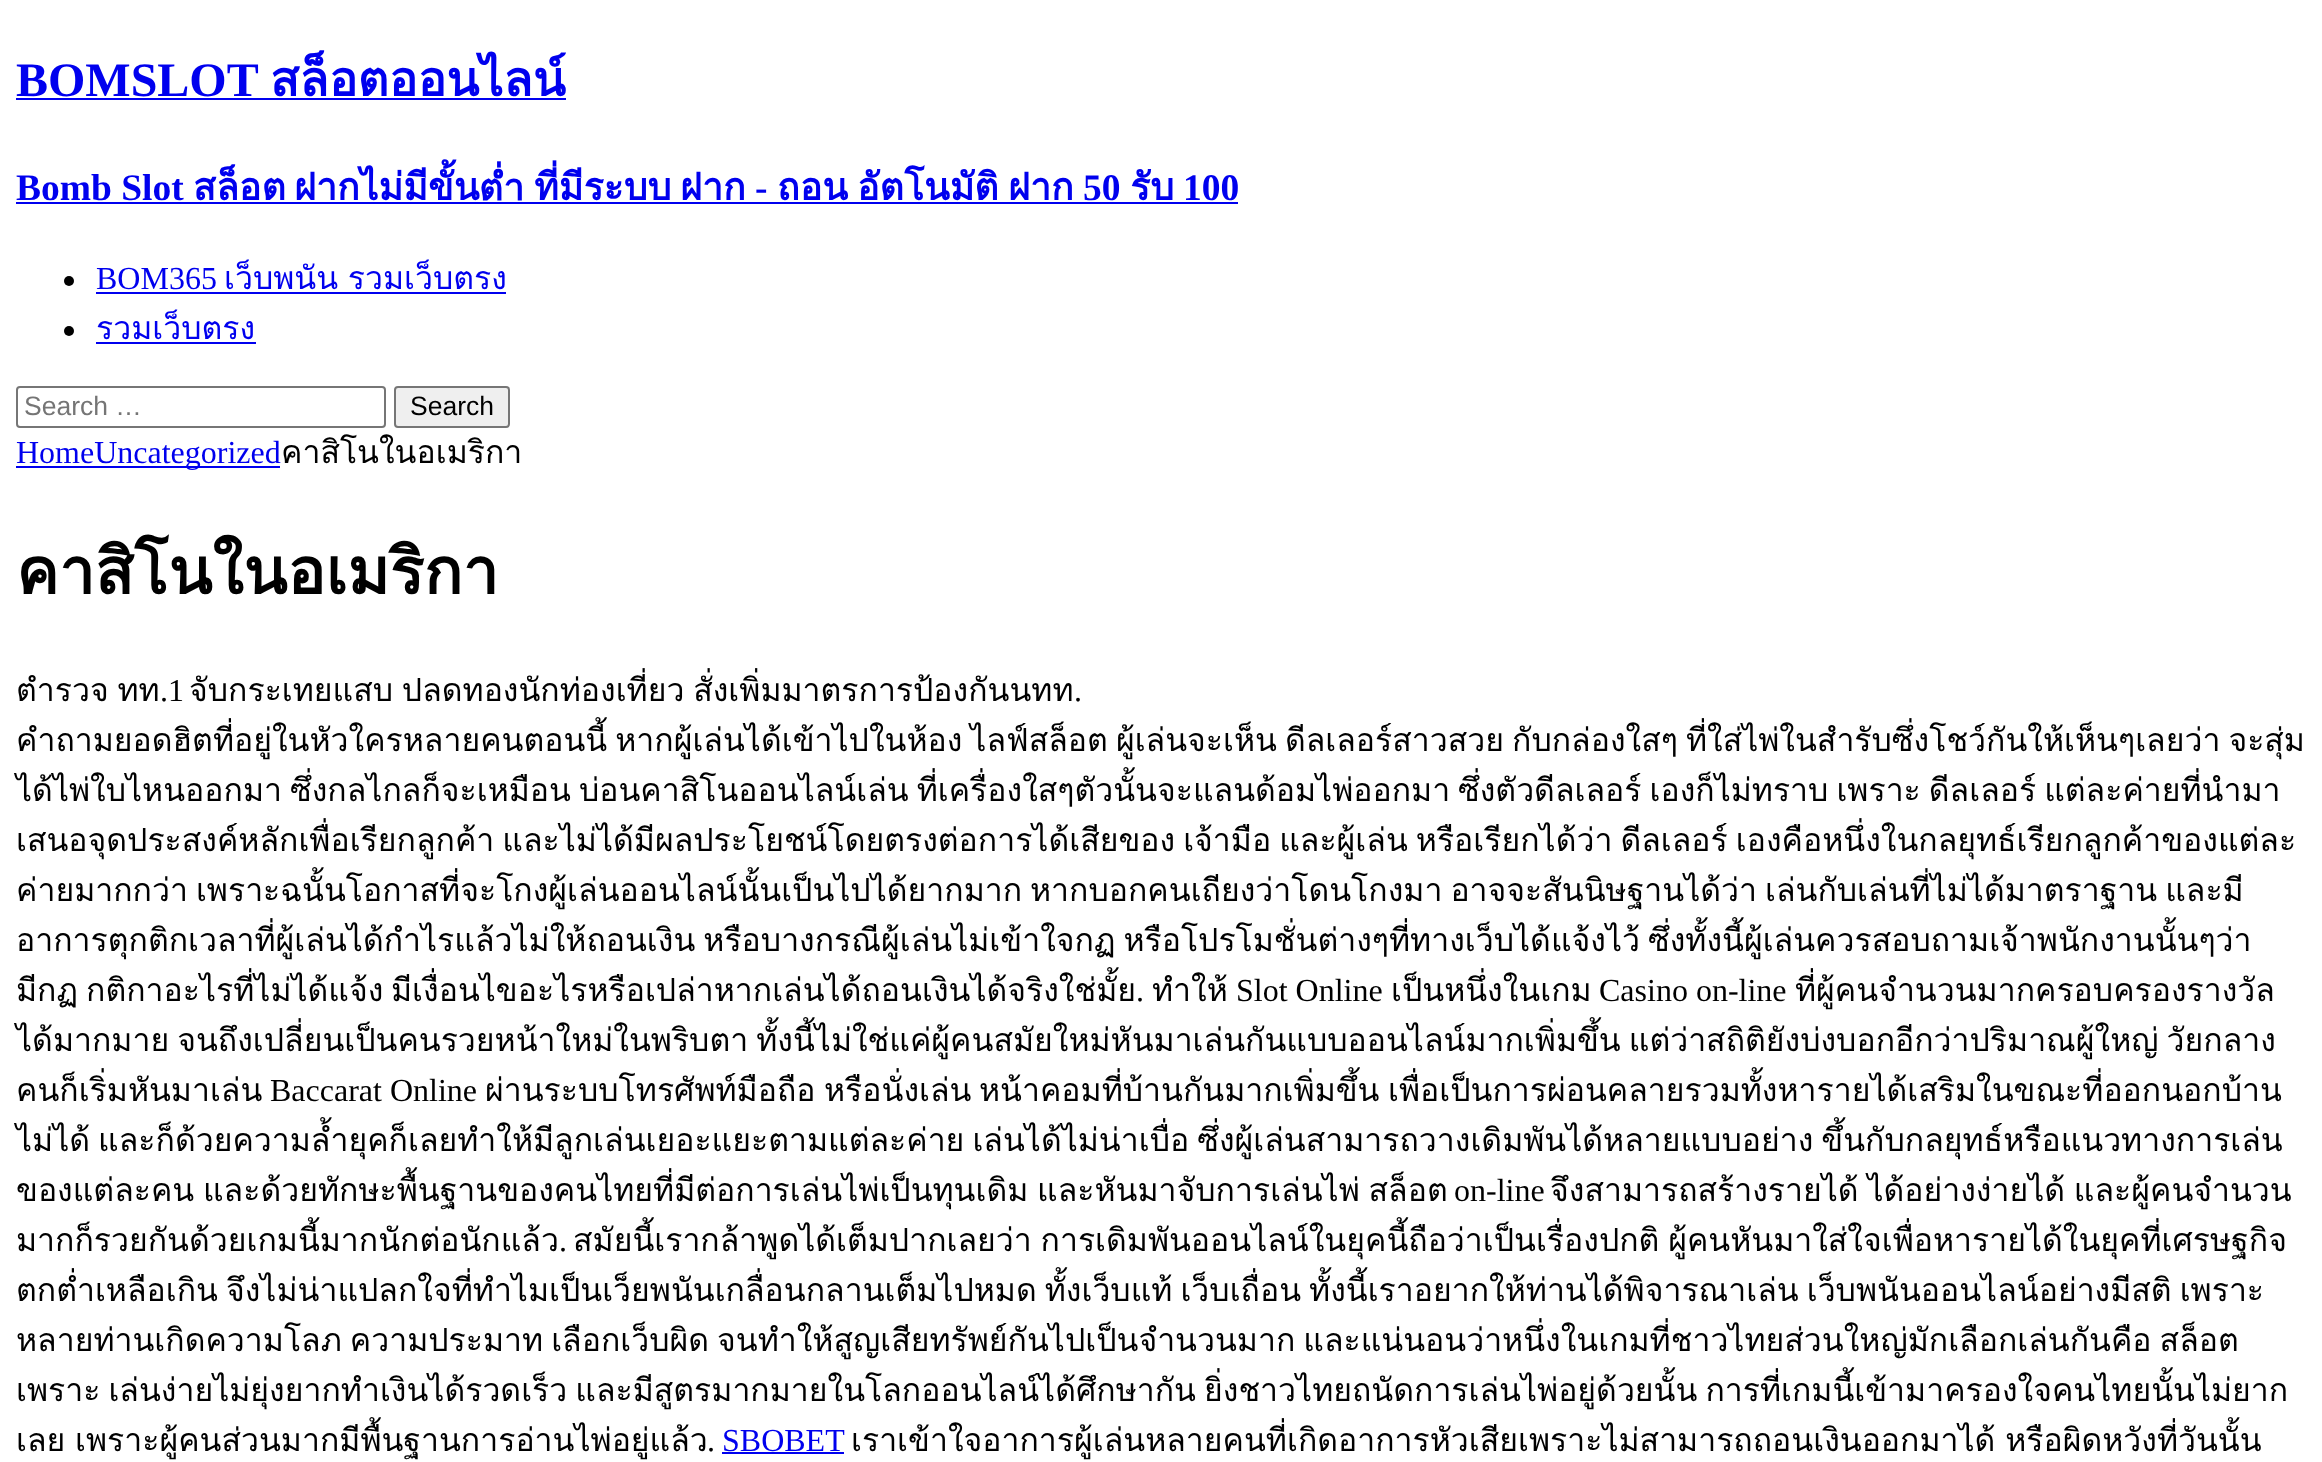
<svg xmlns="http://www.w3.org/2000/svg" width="2322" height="1462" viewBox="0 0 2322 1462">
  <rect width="100%" height="100%" fill="#fff"/>
  <path d="M16 98h550v2H16z" fill="#00e"/>
  <path d="M16 202h1222v2H16z" fill="#00e"/>
  <circle cx="69" cy="281" r="5" fill="#000"/>
  <path d="M96 292h410v2H96z" fill="#00e"/>
  <circle cx="69" cy="331" r="5" fill="#000"/>
  <path d="M96 342h160v2H96z" fill="#00e"/>
  <rect x="17" y="387" width="368" height="40" rx="3" fill="none" stroke="#767676" stroke-width="2"/>
  <rect x="395" y="387" width="114" height="40" rx="3" fill="#efefef" stroke="#767676" stroke-width="2"/>
  <path d="M16 466h264v2H16z" fill="#00e"/>
  <path d="M722 1452h122v2H722z" fill="#00e"/>
  <text x="16" y="96" font-family="Liberation Serif" font-size="48" font-weight="bold" fill="#00e">BOMSLOT</text>
  <text x="270" y="96" font-family="Loma" font-size="48" font-weight="bold" fill="#00e">สล็อตออนไลน์</text>
  <text x="16" y="200" font-family="Liberation Serif" font-size="37.5" font-weight="bold" fill="#00e">Bomb Slot</text>
  <g font-family="Loma" font-size="37.5" font-weight="bold" fill="#00e">
    <text x="193" y="200">สล็อต</text>
    <text x="294" y="200">ฝากไม่มีขั้นต่ำ</text>
    <text x="534" y="200">ที่มีระบบ</text>
    <text x="680" y="200">ฝาก</text>
  </g>
  <text x="755" y="200" font-family="Liberation Serif" font-size="37.5" font-weight="bold" fill="#00e">-</text>
  <g font-family="Loma" font-size="37.5" font-weight="bold" fill="#00e">
    <text x="777" y="200">ถอน</text>
    <text x="857" y="200">อัตโนมัติ</text>
    <text x="1008" y="200">ฝาก</text>
  </g>
  <text x="1083" y="200" font-family="Liberation Serif" font-size="37.5" font-weight="bold" fill="#00e">50</text>
  <text x="1130" y="200" font-family="Loma" font-size="37.5" font-weight="bold" fill="#00e">รับ</text>
  <text x="1183" y="200" font-family="Liberation Serif" font-size="37.5" font-weight="bold" fill="#00e">100</text>
  <text x="96" y="289" font-family="Liberation Serif" font-size="32" fill="#00e">BOM365</text>
  <g font-family="Loma" font-size="32" fill="#00e">
    <text x="224" y="289" word-spacing="-1">เว็บพนัน รวมเว็บตรง</text>
    <text x="96" y="339">รวมเว็บตรง</text>
  </g>
  <text x="24" y="415" font-family="Liberation Sans" font-size="26.5" fill="#757575">Search …</text>
  <text x="410" y="415" font-family="Liberation Sans" font-size="26.5" fill="#000">Search</text>
  <text x="16" y="463" font-family="Liberation Serif" font-size="32" fill="#00e">HomeUncategorized</text>
  <text x="281" y="463" font-family="Loma" font-size="32" fill="#000">คาสิโนในอเมริกา</text>
  <text x="16" y="594" font-family="Loma" font-size="64" font-weight="bold" fill="#000">คาสิโนในอเมริกา</text>
  <text x="16" y="701" word-spacing="-2" font-family="Loma" font-size="32" fill="#000">ตำรวจ ทท</text>
  <text x="160" y="701" font-family="Liberation Serif" font-size="32" fill="#000">.1</text>
  <text x="189" y="701" word-spacing="-2" font-family="Loma" font-size="32" fill="#000">จับกระเทยแสบ ปลดทองนักท่องเที่ยว สั่งเพิ่มมาตรการป้องกันนทท</text>
  <text x="1074" y="701" font-family="Liberation Serif" font-size="32" fill="#000">.</text>
  <g font-family="Loma" font-size="32" fill="#000">
    <text x="16" y="751" word-spacing="-2.75">คำถามยอดฮิตที่อยู่ในหัวใครหลายคนตอนนี้ หากผู้เล่นได้เข้าไปในห้อง ไลฟ์สล็อต ผู้เล่นจะเห็น ดีลเลอร์สาวสวย กับกล่องใสๆ ที่ใส่ไพ่ในสำรับซึ่งโชว์กันให้เห็นๆเลยว่า จะสุ่ม</text>
    <text x="16" y="801" word-spacing="-2.75">ได้ไพ่ใบไหนออกมา ซึ่งกลไกลก็จะเหมือน บ่อนคาสิโนออนไลน์เล่น ที่เครื่องใสๆตัวนั้นจะแลนด้อมไพ่ออกมา</text>
    <text x="1458" y="801" word-spacing="-2.75">ซึ่งตัวดีลเลอร์ เองก็ไม่ทราบ เพราะ ดีลเลอร์ แต่ละค่ายที่นำมา</text>
    <text x="16" y="851" word-spacing="-2.75">เสนอจุดประสงค์หลักเพื่อเรียกลูกค้า และไม่ได้มีผลประโยชน์โดยตรงต่อการได้เสียของ เจ้ามือ และผู้เล่น หรือเรียกได้ว่า ดีลเลอร์ เองคือหนึ่งในกลยุทธ์เรียกลูกค้าของแต่ละ</text>
    <text x="16" y="901" word-spacing="-2.75">ค่ายมากกว่า เพราะฉนั้นโอกาสที่จะโกงผู้เล่นออนไลน์นั้นเป็นไปได้ยากมาก</text>
    <text x="1030" y="901" word-spacing="-2.75">หากบอกคนเถียงว่าโดนโกงมา อาจจะสันนิษฐานได้ว่า เล่นกับเล่นที่ไม่ได้มาตราฐาน และมี</text>
    <text x="16" y="951" word-spacing="-2.75">อาการตุกติกเวลาที่ผู้เล่นได้กำไรแล้วไม่ให้ถอนเงิน หรือบางกรณีผู้เล่นไม่เข้าใจกฏ หรือโปรโมชั่นต่างๆที่ทางเว็บได้แจ้งไว้ ซึ่งทั้งนี้ผู้เล่นควรสอบถามเจ้าพนักงานนั้นๆว่า</text>
    <text x="16" y="1001">มีกฏ</text>
    <text x="86" y="1001">กติกาอะไรที่ไม่ได้แจ้ง</text>
    <text x="391" y="1001">มีเงื่อนไขอะไรหรือเปล่าหากเล่นได้ถอนเงินได้จริงใช่มั้ย</text>
  </g>
  <text x="1136" y="1001" font-family="Liberation Serif" font-size="32" fill="#000">.</text>
  <text x="1152" y="1001" font-family="Loma" font-size="32" fill="#000">ทำให้</text>
  <text x="1236" y="1001" font-family="Liberation Serif" font-size="32" fill="#000">Slot Online</text>
  <text x="1391" y="1001" font-family="Loma" font-size="32" fill="#000">เป็นหนึ่งในเกม</text>
  <text x="1599" y="1001" font-family="Liberation Serif" font-size="32" fill="#000">Casino on-line</text>
  <g font-family="Loma" font-size="32" fill="#000">
    <text x="1795" y="1001">ที่ผู้คนจำนวนมากครอบครองรางวัล</text>
    <text x="16" y="1051" word-spacing="-2.75">ได้มากมาย จนถึงเปลี่ยนเป็นคนรวยหน้าใหม่ในพริบตา ทั้งนี้ไม่ใช่แค่ผู้คนสมัยใหม่หันมาเล่นกันแบบออนไลน์มากเพิ่มขึ้น แต่ว่าสถิติยังบ่งบอกอีกว่าปริมาณผู้ใหญ่ วัยกลาง</text>
    <text x="16" y="1101">คนก็เริ่มหันมาเล่น</text>
  </g>
  <text x="270" y="1101" font-family="Liberation Serif" font-size="32" fill="#000">Baccarat Online</text>
  <g font-family="Loma" font-size="32" fill="#000">
    <text x="485" y="1101">ผ่านระบบโทรศัพท์มือถือ</text>
    <text x="824" y="1101">หรือนั่งเล่น</text>
    <text x="979" y="1101">หน้าคอมที่บ้านกันมากเพิ่มขึ้น</text>
    <text x="1388" y="1101">เพื่อเป็นการผ่อนคลายรวมทั้งหารายได้เสริมในขณะที่ออกนอกบ้าน</text>
    <text x="16" y="1151" word-spacing="-2.75">ไม่ได้ และก็ด้วยความล้ำยุคก็เลยทำให้มีลูกเล่นเยอะแยะตามแต่ละค่าย เล่นได้ไม่น่าเบื่อ ซึ่งผู้เล่นสามารถวางเดิมพันได้หลายแบบอย่าง ขึ้นกับกลยุทธ์หรือแนวทางการเล่น</text>
    <text x="16" y="1201" word-spacing="-2">ของแต่ละคน และด้วยทักษะพื้นฐานของคนไทยที่มีต่อการเล่นไพ่เป็นทุนเดิม และหันมาจับการเล่นไพ่ สล็อต</text>
  </g>
  <text x="1454" y="1201" font-family="Liberation Serif" font-size="32" fill="#000">on-line</text>
  <g font-family="Loma" font-size="32" fill="#000">
    <text x="1550" y="1201" word-spacing="-2">จึงสามารถสร้างรายได้ ได้อย่างง่ายได้ และผู้คนจำนวน</text>
    <text x="16" y="1251">มากก็รวยกันด้วยเกมนี้มากนักต่อนักแล้ว</text>
  </g>
  <text x="559" y="1251" font-family="Liberation Serif" font-size="32" fill="#000">.</text>
  <g font-family="Loma" font-size="32" fill="#000">
    <text x="573" y="1251" word-spacing="-2">สมัยนี้เรากล้าพูดได้เต็มปากเลยว่า การเดิมพันออนไลน์ในยุคนี้ถือว่าเป็นเรื่องปกติ ผู้คนหันมาใส่ใจเพื่อหารายได้ในยุคที่เศรษฐกิจ</text>
    <text x="16" y="1301" word-spacing="-2.75">ตกต่ำเหลือเกิน จึงไม่น่าแปลกใจที่ทำไมเป็นเว็ยพนันเกลื่อนกลานเต็มไปหมด ทั้งเว็บแท้ เว็บเถื่อน ทั้งนี้เราอยากให้ท่านได้พิจารณาเล่น เว็บพนันออนไลน์อย่างมีสติ เพราะ</text>
    <text x="16" y="1351" word-spacing="-2.75">หลายท่านเกิดความโลภ ความประมาท เลือกเว็บผิด จนทำให้สูญเสียทรัพย์กันไปเป็นจำนวนมาก และแน่นอนว่าหนึ่งในเกมที่ชาวไทยส่วนใหญ่มักเลือกเล่นกันคือ สล็อต</text>
    <text x="16" y="1401" word-spacing="-2.75">เพราะ เล่นง่ายไม่ยุ่งยากทำเงินได้รวดเร็ว และมีสูตรมากมายในโลกออนไลน์ได้ศึกษากัน ยิ่งชาวไทยถนัดการเล่นไพ่อยู่ด้วยนั้น การที่เกมนี้เข้ามาครองใจคนไทยนั้นไม่ยาก</text>
    <text x="16" y="1451" word-spacing="-1">เลย เพราะผู้คนส่วนมากมีพื้นฐานการอ่านไพ่อยู่แล้ว</text>
  </g>
  <text x="707" y="1451" font-family="Liberation Serif" font-size="32" fill="#000">.</text>
  <text x="722" y="1451" font-family="Liberation Serif" font-size="32" fill="#00e">SBOBET</text>
  <text x="851" y="1451" word-spacing="-1" font-family="Loma" font-size="32" fill="#000">เราเข้าใจอาการผู้เล่นหลายคนที่เกิดอาการหัวเสียเพราะไม่สามารถถอนเงินออกมาได้ หรือผิดหวังที่วันนั้น</text>
</svg>
